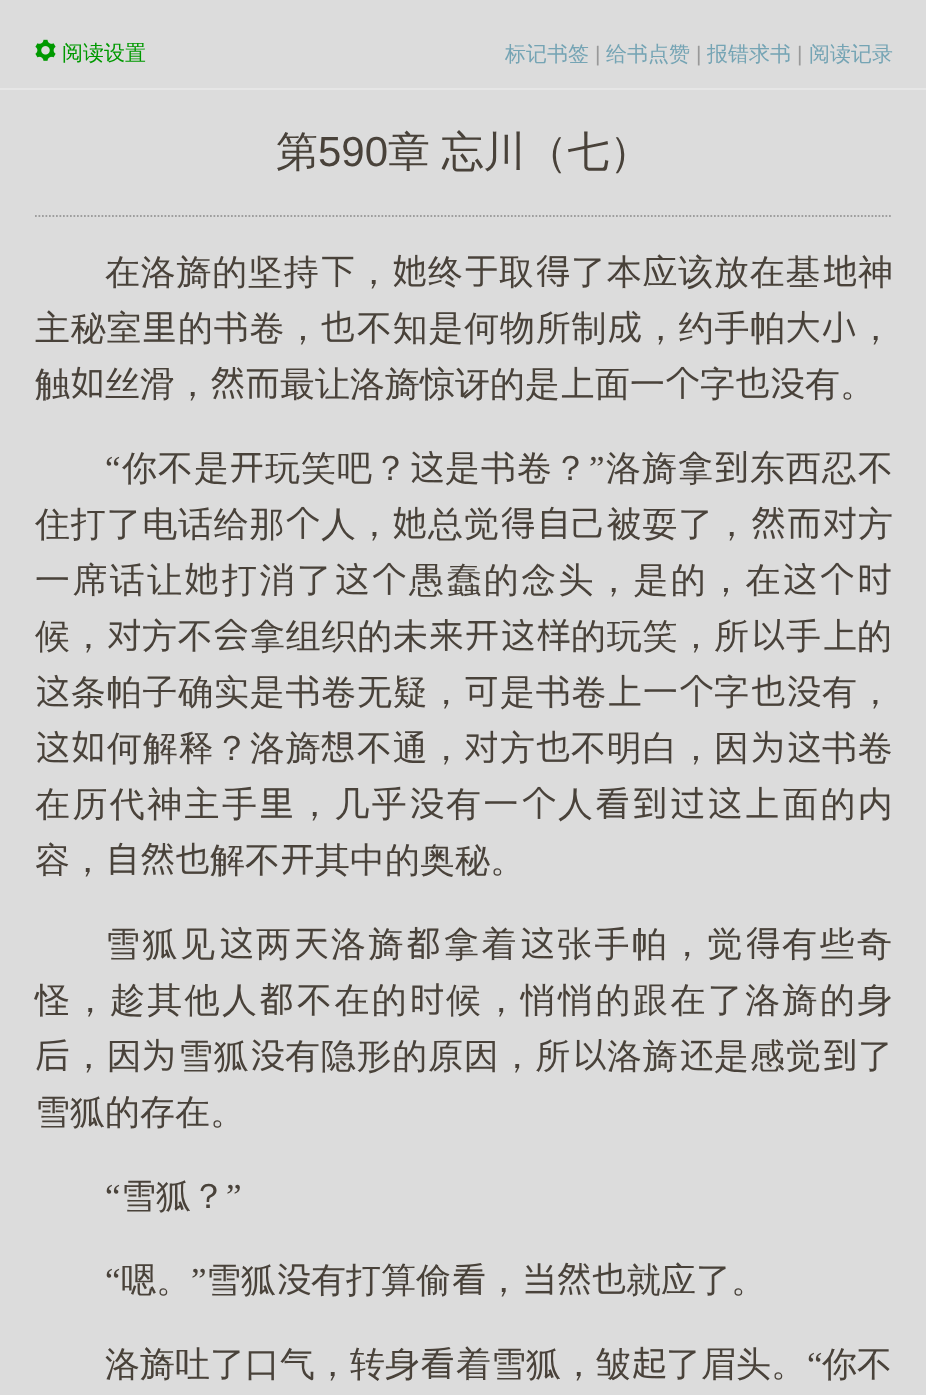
<svg xmlns="http://www.w3.org/2000/svg" width="926" height="1395" viewBox="0 0 926 1395">
  <rect width="100%" height="100%" fill="#dcdcdc"/>
  <path d="M0 88h926v2H0z" fill="#e6e6e6"/>
  <image x="35" y="39" width="21" height="22" href="img/1.png"/>
  <path d="M35 216H892.5" fill="none" stroke="#9e9e9e" stroke-width="1.8" stroke-dasharray="1.75 1.75"/>
  <image x="322" y="256" width="32" height="32" href="img/2.png"/>
  <image x="393" y="254" width="33" height="34" href="img/3.png"/>
  <image x="465" y="256" width="32" height="31" href="img/4.png"/>
  <image x="536" y="255" width="33" height="32" href="img/5.png"/>
  <image x="823" y="254" width="33" height="33" href="img/6.png"/>
  <image x="143" y="312" width="32" height="30" href="img/7.png"/>
  <image x="321" y="310" width="33" height="32" href="img/8.png"/>
  <image x="608" y="310" width="33" height="33" href="img/9.png"/>
  <image x="787" y="310" width="69" height="33" href="img/10.png"/>
  <image x="71" y="366" width="31" height="33" href="img/11.png"/>
  <image x="211" y="366" width="68" height="34" href="img/12.png"/>
  <image x="561" y="366" width="33" height="32" href="img/13.png"/>
  <image x="666" y="366" width="33" height="33" href="img/14.png"/>
  <image x="736" y="366" width="68" height="34" href="img/15.png"/>
  <image x="231" y="453" width="32" height="30" href="img/16.png"/>
  <image x="411" y="450" width="32" height="33" href="img/17.png"/>
  <image x="715" y="451" width="32" height="32" href="img/18.png"/>
  <image x="286" y="506" width="33" height="33" href="img/19.png"/>
  <image x="393" y="506" width="33" height="34" href="img/3.png"/>
  <image x="501" y="506" width="65" height="33" href="img/20.png"/>
  <image x="752" y="506" width="104" height="34" href="img/21.png"/>
  <image x="185" y="562" width="33" height="34" href="img/22.png"/>
  <image x="336" y="562" width="70" height="33" href="img/23.png"/>
  <image x="784" y="562" width="107" height="33" href="img/24.png"/>
  <image x="108" y="618" width="32" height="33" href="img/25.png"/>
  <image x="214" y="618" width="34" height="33" href="img/26.png"/>
  <image x="430" y="618" width="140" height="34" href="img/27.png"/>
  <image x="754" y="619" width="31" height="32" href="img/28.png"/>
  <image x="824" y="618" width="32" height="32" href="img/29.png"/>
  <image x="37" y="674" width="32" height="33" href="img/30.png"/>
  <image x="465" y="677" width="32" height="30" href="img/31.png"/>
  <image x="609" y="674" width="32" height="32" href="img/32.png"/>
  <image x="680" y="674" width="33" height="33" href="img/14.png"/>
  <image x="752" y="674" width="69" height="34" href="img/33.png"/>
  <image x="37" y="730" width="66" height="33" href="img/34.png"/>
  <image x="321" y="731" width="33" height="32" href="img/35.png"/>
  <image x="465" y="730" width="32" height="33" href="img/25.png"/>
  <image x="536" y="730" width="34" height="32" href="img/36.png"/>
  <image x="752" y="730" width="68" height="33" href="img/37.png"/>
  <image x="261" y="788" width="31" height="30" href="img/38.png"/>
  <image x="411" y="787" width="33" height="33" href="img/39.png"/>
  <image x="522" y="786" width="34" height="33" href="img/40.png"/>
  <image x="596" y="786" width="182" height="33" href="img/41.png"/>
  <image x="110" y="842" width="99" height="34" href="img/42.png"/>
  <image x="282" y="845" width="31" height="30" href="img/43.png"/>
  <image x="220" y="926" width="33" height="33" href="img/44.png"/>
  <image x="295" y="928" width="33" height="31" href="img/45.png"/>
  <image x="407" y="926" width="32" height="33" href="img/46.png"/>
  <image x="521" y="926" width="33" height="33" href="img/44.png"/>
  <image x="746" y="927" width="33" height="32" href="img/5.png"/>
  <image x="260" y="982" width="32" height="33" href="img/46.png"/>
  <image x="412" y="983" width="32" height="32" href="img/47.png"/>
  <image x="36" y="1039" width="33" height="32" href="img/48.png"/>
  <image x="143" y="1038" width="30" height="33" href="img/49.png"/>
  <image x="251" y="1039" width="33" height="33" href="img/50.png"/>
  <image x="576" y="1039" width="30" height="32" href="img/51.png"/>
  <image x="681" y="1039" width="32" height="32" href="img/52.png"/>
  <image x="824" y="1039" width="31" height="32" href="img/53.png"/>
  <image x="278" y="1263" width="33" height="33" href="img/39.png"/>
  <image x="453" y="1263" width="32" height="32" href="img/54.png"/>
  <image x="525" y="1262" width="101" height="34" href="img/55.png"/>
  <image x="421" y="1347" width="32" height="32" href="img/56.png"/>
  <image x="633" y="1346" width="33" height="33" href="img/57.png"/>
  <text x="62" y="60" font-family="WenQuanYi Zen Hei" font-size="21" font-weight="500" fill="#090">阅读设置</text>
  <text x="505" y="61" font-family="WenQuanYi Zen Hei" font-size="21" font-weight="500" fill="#75a4b4">标记书签</text>
  <text x="595" y="61" font-family="Liberation Sans" font-size="21" fill="#999">|</text>
  <text x="606" y="61" font-family="WenQuanYi Zen Hei" font-size="21" font-weight="500" fill="#75a4b4">给书点赞</text>
  <text x="696" y="61" font-family="Liberation Sans" font-size="21" fill="#999">|</text>
  <text x="707" y="61" font-family="WenQuanYi Zen Hei" font-size="21" font-weight="500" fill="#75a4b4">报错求书</text>
  <text x="797" y="61" font-family="Liberation Sans" font-size="21" fill="#999">|</text>
  <text x="809" y="61" font-family="WenQuanYi Zen Hei" font-size="21" font-weight="500" fill="#75a4b4">阅读记录</text>
  <text x="276" y="166" font-family="WenQuanYi Zen Hei" font-size="42" font-weight="500" fill="#49423a">第</text>
  <text x="318" y="166" font-family="Liberation Sans" font-size="42" fill="#49423a">590</text>
  <text x="388" y="166" word-spacing="-1" font-family="WenQuanYi Zen Hei" font-size="42" font-weight="500" fill="#49423a">章 忘川（七）</text>
  <g font-family="WenQuanYi Zen Hei" font-size="35" font-weight="500" letter-spacing="0.75" fill="#49423a">
    <text x="105" y="284">在洛旖的坚持</text>
    <text x="356" y="284">，</text>
    <text x="428" y="284">终</text>
    <text x="499" y="284">取</text>
    <text x="571" y="284">了本应该放在基</text>
    <text x="858" y="284">神</text>
    <text x="35" y="340">主秘室</text>
    <text x="178" y="340">的书卷，</text>
    <text x="357" y="340">不知是何物所制</text>
    <text x="643" y="340">，约手帕</text>
    <text x="858" y="340">，</text>
  </g>
  <g font-family="WenQuanYi Zen Hei" font-size="35" font-weight="500" fill="#49423a">
    <text x="35" y="396">触</text>
    <text x="105" y="396">丝滑，</text>
    <text x="280" y="396">最让洛旖惊讶的是</text>
    <text x="595" y="396">面一</text>
    <text x="700" y="396">字</text>
    <text x="805" y="396">有。</text>
  </g>
  <text x="105" y="480" font-family="Liberation Serif" font-size="35" letter-spacing="1" fill="#49423a">“</text>
  <g font-family="WenQuanYi Zen Hei" font-size="35" font-weight="500" letter-spacing="1" fill="#49423a">
    <text x="122" y="480">你不是</text>
    <text x="265" y="480">玩笑吧？</text>
    <text x="445" y="480">是书卷？</text>
  </g>
  <text x="589" y="480" font-family="Liberation Serif" font-size="35" letter-spacing="1" fill="#49423a">”</text>
  <g font-family="WenQuanYi Zen Hei" font-size="35" font-weight="500" letter-spacing="1" fill="#49423a">
    <text x="606" y="480">洛旖拿</text>
    <text x="750" y="480">东西忍不</text>
  </g>
  <g font-family="WenQuanYi Zen Hei" font-size="35" font-weight="500" letter-spacing="0.75" fill="#49423a">
    <text x="35" y="536">住打了电话给那</text>
    <text x="321" y="536">人，</text>
    <text x="428" y="536">总觉</text>
    <text x="571" y="536">己被耍了，</text>
    <text x="858" y="536">方</text>
  </g>
  <g font-family="WenQuanYi Zen Hei" font-size="35" font-weight="500" letter-spacing="2.4" fill="#49423a">
    <text x="35" y="592">一席话让</text>
    <text x="222" y="592">打消了</text>
    <text x="409" y="592">愚蠢的念头，是的，在</text>
  </g>
  <g font-family="WenQuanYi Zen Hei" font-size="35" font-weight="500" letter-spacing="0.75" fill="#49423a">
    <text x="35" y="648">候，</text>
    <text x="142" y="648">方不</text>
    <text x="250" y="648">拿组织的未</text>
    <text x="571" y="648">的玩笑，所</text>
    <text x="786" y="648">手</text>
    <text x="857" y="648">的</text>
    <text x="71" y="704">条帕子确实是书卷无疑，</text>
    <text x="500" y="704">是书卷</text>
    <text x="643" y="704">一</text>
    <text x="714" y="704">字</text>
    <text x="822" y="704">有，</text>
    <text x="107" y="760">何解释？洛旖</text>
    <text x="357" y="760">不通，</text>
    <text x="500" y="760">方</text>
    <text x="571" y="760">不明白，因</text>
    <text x="822" y="760">书卷</text>
  </g>
  <g font-family="WenQuanYi Zen Hei" font-size="35" font-weight="500" letter-spacing="2.4" fill="#49423a">
    <text x="35" y="816">在历代神主手</text>
    <text x="297" y="816">，几乎</text>
    <text x="446" y="816">有一</text>
    <text x="558" y="816">人</text>
    <text x="783" y="816">面的内</text>
  </g>
  <g font-family="WenQuanYi Zen Hei" font-size="35" font-weight="500" fill="#49423a">
    <text x="35" y="872">容，</text>
    <text x="210" y="872">解不</text>
    <text x="315" y="872">其中的奥秘。</text>
  </g>
  <g font-family="WenQuanYi Zen Hei" font-size="35" font-weight="500" letter-spacing="2.5" fill="#49423a">
    <text x="105" y="956">雪狐见</text>
    <text x="256" y="956">两</text>
    <text x="331" y="956">洛旖</text>
    <text x="444" y="956">拿着</text>
    <text x="557" y="956">张手帕，觉</text>
    <text x="782" y="956">有些奇</text>
  </g>
  <g font-family="WenQuanYi Zen Hei" font-size="35" font-weight="500" letter-spacing="2.4" fill="#49423a">
    <text x="35" y="1012">怪，趁其他人</text>
    <text x="297" y="1012">不在的</text>
    <text x="446" y="1012">候，悄悄的跟在了洛旖的身</text>
  </g>
  <g font-family="WenQuanYi Zen Hei" font-size="35" font-weight="500" letter-spacing="0.75" fill="#49423a">
    <text x="71" y="1068">，因</text>
    <text x="178" y="1068">雪狐</text>
    <text x="285" y="1068">有隐形的原因，所</text>
    <text x="607" y="1068">洛旖</text>
    <text x="714" y="1068">是感觉</text>
    <text x="858" y="1068">了</text>
  </g>
  <text x="35" y="1124" font-family="WenQuanYi Zen Hei" font-size="35" font-weight="500" fill="#49423a">雪狐的存在。</text>
  <text x="105" y="1208" font-family="Liberation Serif" font-size="35" fill="#49423a">“</text>
  <text x="121" y="1208" font-family="WenQuanYi Zen Hei" font-size="35" font-weight="500" fill="#49423a">雪狐？</text>
  <g font-family="Liberation Serif" font-size="35" fill="#49423a">
    <text x="226" y="1208">”</text>
    <text x="105" y="1292">“</text>
  </g>
  <text x="121" y="1292" font-family="WenQuanYi Zen Hei" font-size="35" font-weight="500" fill="#49423a">嗯。</text>
  <text x="191" y="1292" font-family="Liberation Serif" font-size="35" fill="#49423a">”</text>
  <g font-family="WenQuanYi Zen Hei" font-size="35" font-weight="500" fill="#49423a">
    <text x="206" y="1292">雪狐</text>
    <text x="311" y="1292">有打算偷</text>
    <text x="626" y="1292">就应了。</text>
    <text x="486" y="1292">，</text>
    <text x="105" y="1376">洛旖吐了口气，转身</text>
    <text x="456" y="1376">着雪狐，皱</text>
    <text x="666" y="1376">了眉头。</text>
  </g>
  <text x="807" y="1376" font-family="Liberation Serif" font-size="35" fill="#49423a">“</text>
  <text x="822" y="1376" font-family="WenQuanYi Zen Hei" font-size="35" font-weight="500" fill="#49423a">你不</text>
</svg>
